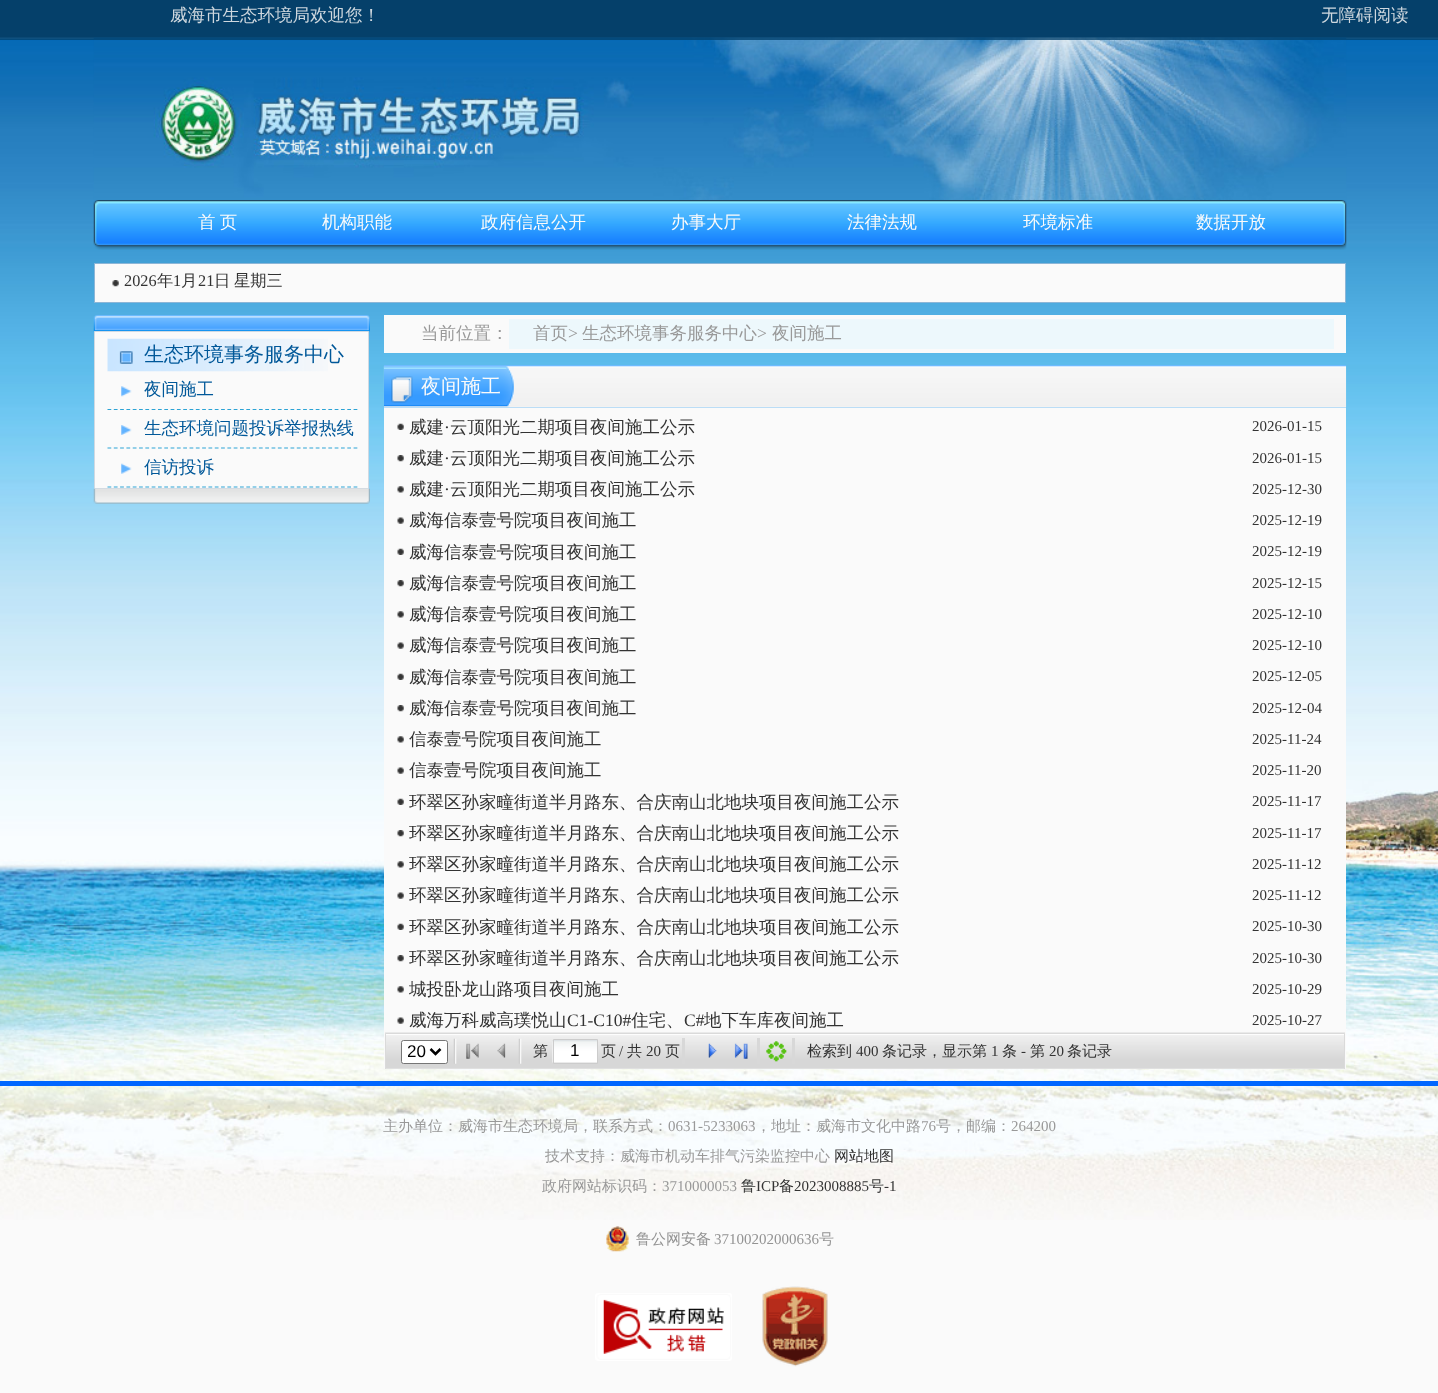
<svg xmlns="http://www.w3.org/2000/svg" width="1438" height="1393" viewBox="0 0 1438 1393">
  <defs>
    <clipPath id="clip1"><path d="M95 371h283v39H95z"/></clipPath>
    <clipPath id="clip2"><path d="M384 365h962v704H384z"/></clipPath>
    <clipPath id="clip3"><path d="M408 1041h18v22H408z"/></clipPath>
  </defs>
  <rect width="100%" height="100%" fill="#fafafa"/>
  <image x="0" y="0" width="1438" height="1220" href="img/1.png"/>
  <image x="93" y="37" width="1254" height="163" href="img/2.png"/>
  <path d="M0 0h1438v40H0z" fill="#04426ecc"/>
  <image x="93" y="200" width="1254" height="50" href="img/3.png"/>
  <path d="M94.5 263.5h1251v39H94.5z" fill="#fafafa" stroke="#8cb6d7"/>
  <image x="112" y="280" width="7" height="7" href="img/4.png"/>
  <image x="93" y="315" width="277" height="17" href="img/5.png"/>
  <path d="M94.5 331.5h274v157H94.5z" fill="#fafafa" stroke="#cfd9e2"/>
  <image x="107" y="338" width="221" height="34" href="img/6.png"/>
  <image x="119" y="351" width="14" height="13" href="img/7.png"/>
  <g clip-path="url(#clip1)">
    <path d="M107.5 409.5H357.5" fill="none" stroke="#2ca3d5" stroke-width="1.2" stroke-dasharray="3.75 2.56"/>
  </g>
  <image x="121" y="386" width="11" height="11" href="img/8.png"/>
  <path d="M107.5 448H357.5" fill="none" stroke="#2ca3d5" stroke-width="1.2" stroke-dasharray="3.75 2.56"/>
  <image x="121" y="425" width="11" height="10" href="img/9.png"/>
  <path d="M107.5 487H357.5" fill="none" stroke="#2ca3d5" stroke-width="1.2" stroke-dasharray="3.75 2.56"/>
  <image x="121" y="463" width="11" height="11" href="img/10.png"/>
  <image x="93" y="488" width="277" height="16" href="img/11.png"/>
  <path d="M384 315h962v38H384z" fill="#fafafa"/>
  <path d="M509 319h825v30H509z" fill="#edf8fc"/>
  <path d="M384 407h962v662H384z" fill="#fafafa"/>
  <image x="383" y="365" width="964" height="43" href="img/12.png"/>
  <image x="383" y="366" width="131" height="41" href="img/13.png"/>
  <image x="391" y="376" width="22" height="27" href="img/14.png"/>
  <image x="397" y="423" width="7" height="7" href="img/15.png"/>
  <image x="397" y="455" width="7" height="7" href="img/16.png"/>
  <image x="397" y="486" width="7" height="7" href="img/17.png"/>
  <image x="397" y="517" width="7" height="7" href="img/18.png"/>
  <image x="397" y="548" width="7" height="7" href="img/15.png"/>
  <image x="397" y="580" width="7" height="7" href="img/16.png"/>
  <image x="397" y="611" width="7" height="7" href="img/17.png"/>
  <image x="397" y="642" width="7" height="7" href="img/18.png"/>
  <image x="397" y="673" width="7" height="7" href="img/15.png"/>
  <image x="397" y="705" width="7" height="7" href="img/16.png"/>
  <image x="397" y="736" width="7" height="7" href="img/17.png"/>
  <image x="397" y="767" width="7" height="7" href="img/18.png"/>
  <image x="397" y="798" width="7" height="7" href="img/15.png"/>
  <image x="397" y="830" width="7" height="7" href="img/16.png"/>
  <image x="397" y="861" width="7" height="7" href="img/17.png"/>
  <image x="397" y="892" width="7" height="7" href="img/18.png"/>
  <image x="397" y="923" width="7" height="7" href="img/15.png"/>
  <image x="397" y="955" width="7" height="7" href="img/16.png"/>
  <image x="397" y="986" width="7" height="7" href="img/17.png"/>
  <image x="397" y="1017" width="7" height="7" href="img/18.png"/>
  <image x="385" y="1032" width="960" height="37" href="img/19.png"/>
  <g clip-path="url(#clip2)">
    <path d="M385.5 1033.5h959v36H385.5z" fill="none" stroke="#dadada"/>
  </g>
  <rect x="401.5" y="1040.5" width="46" height="23" rx="2" fill="#fff" stroke="#767676"/>
  <path d="M430.5 1049L435.5 1054L440.5 1049" fill="none" stroke="#000" stroke-width="2.5"/>
  <image x="453" y="1038" width="4" height="26" href="img/20.png"/>
  <image x="466" y="1043" width="13" height="16" href="img/21.png"/>
  <image x="497" y="1043" width="9" height="15" href="img/22.png"/>
  <image x="518" y="1038" width="4" height="26" href="img/20.png"/>
  <image x="552" y="1040" width="45" height="23" href="img/23.png"/>
  <path d="M553.5 1039.5h44v24H553.5z" fill="none" stroke="#ccc"/>
  <path d="M682 1038h3v26H682z" fill="#d8d8d8"/>
  <image x="708" y="1043" width="9" height="15" href="img/24.png"/>
  <image x="734" y="1043" width="14" height="16" href="img/25.png"/>
  <path d="M757 1038h3v26H757z" fill="#d8d8d8"/>
  <image x="766" y="1041" width="21" height="21" href="img/26.png"/>
  <path d="M792 1038h3v26H792z" fill="#d8d8d8"/>
  <path d="M0 1081h1438v5H0z" fill="#06f"/>
  <image x="606" y="1226" width="23" height="26" href="img/27.png"/>
  <image x="595" y="1293" width="137" height="68" href="img/28.png"/>
  <image x="762" y="1286" width="66" height="81" href="img/29.png"/>
  <g font-family="WenQuanYi Zen Hei" font-size="17.5" font-weight="500" fill="#ced7de">
    <text x="170" y="21">威海市生态环境局欢迎您！</text>
    <text x="1321" y="21">无障碍阅读</text>
  </g>
  <g font-family="WenQuanYi Zen Hei" font-size="17.5" font-weight="500" fill="#fafafa">
    <text x="198" y="228" word-spacing="-1">首 页</text>
    <text x="322" y="228">机构职能</text>
    <text x="481" y="228">政府信息公开</text>
    <text x="671" y="228">办事大厅</text>
    <text x="847" y="228">法律法规</text>
    <text x="1023" y="228">环境标准</text>
    <text x="1196" y="228">数据开放</text>
  </g>
  <text x="124" y="286" font-family="Liberation Serif" font-size="16.25" fill="#333">2026</text>
  <text x="157" y="286" font-family="WenQuanYi Zen Hei" font-size="16.25" font-weight="500" fill="#333">年</text>
  <text x="173" y="286" font-family="Liberation Serif" font-size="16.25" fill="#333">1</text>
  <text x="181" y="286" font-family="WenQuanYi Zen Hei" font-size="16.25" font-weight="500" fill="#333">月</text>
  <text x="198" y="286" font-family="Liberation Serif" font-size="16.25" fill="#333">21</text>
  <text x="214" y="286" word-spacing="-1" font-family="WenQuanYi Zen Hei" font-size="16.25" font-weight="500" fill="#333">日 星期三</text>
  <text x="144" y="361" font-family="WenQuanYi Zen Hei" font-size="20" font-weight="500" fill="#005899">生态环境事务服务中心</text>
  <g font-family="WenQuanYi Zen Hei" font-size="17.5" font-weight="500" fill="#005899">
    <text x="144" y="395">夜间施工</text>
    <text x="144" y="434">生态环境问题投诉举报热线</text>
    <text x="144" y="473">信访投诉</text>
  </g>
  <g font-family="WenQuanYi Zen Hei" font-size="17.5" font-weight="500" fill="#999">
    <text x="421" y="339">当前位置：</text>
    <text x="533" y="339">首页</text>
  </g>
  <text x="568" y="339" font-family="Liberation Serif" font-size="17.5" fill="#999">&gt;</text>
  <text x="582" y="339" font-family="WenQuanYi Zen Hei" font-size="17.5" font-weight="500" fill="#999">生态环境事务服务中心</text>
  <text x="757" y="339" font-family="Liberation Serif" font-size="17.5" fill="#999">&gt;</text>
  <text x="772" y="339" font-family="WenQuanYi Zen Hei" font-size="17.5" font-weight="500" fill="#999">夜间施工</text>
  <text x="421" y="393" font-family="WenQuanYi Zen Hei" font-size="20" font-weight="500" fill="#fafafa">夜间施工</text>
  <text x="409" y="433" font-family="WenQuanYi Zen Hei" font-size="17.5" font-weight="500" fill="#333">威建</text>
  <text x="444" y="433" font-family="Liberation Serif" font-size="17.5" fill="#333">·</text>
  <text x="450" y="433" font-family="WenQuanYi Zen Hei" font-size="17.5" font-weight="500" fill="#333">云顶阳光二期项目夜间施工公示</text>
  <text x="1252" y="431" font-family="Liberation Serif" font-size="15" fill="#333">2026-01-15</text>
  <text x="409" y="464" font-family="WenQuanYi Zen Hei" font-size="17.5" font-weight="500" fill="#333">威建</text>
  <text x="444" y="464" font-family="Liberation Serif" font-size="17.5" fill="#333">·</text>
  <text x="450" y="464" font-family="WenQuanYi Zen Hei" font-size="17.5" font-weight="500" fill="#333">云顶阳光二期项目夜间施工公示</text>
  <text x="1252" y="463" font-family="Liberation Serif" font-size="15" fill="#333">2026-01-15</text>
  <text x="409" y="495" font-family="WenQuanYi Zen Hei" font-size="17.5" font-weight="500" fill="#333">威建</text>
  <text x="444" y="495" font-family="Liberation Serif" font-size="17.5" fill="#333">·</text>
  <text x="450" y="495" font-family="WenQuanYi Zen Hei" font-size="17.5" font-weight="500" fill="#333">云顶阳光二期项目夜间施工公示</text>
  <text x="1252" y="494" font-family="Liberation Serif" font-size="15" fill="#333">2025-12-30</text>
  <text x="409" y="526" font-family="WenQuanYi Zen Hei" font-size="17.5" font-weight="500" fill="#333">威海信泰壹号院项目夜间施工</text>
  <text x="1252" y="525" font-family="Liberation Serif" font-size="15" fill="#333">2025-12-19</text>
  <text x="409" y="558" font-family="WenQuanYi Zen Hei" font-size="17.5" font-weight="500" fill="#333">威海信泰壹号院项目夜间施工</text>
  <text x="1252" y="556" font-family="Liberation Serif" font-size="15" fill="#333">2025-12-19</text>
  <text x="409" y="589" font-family="WenQuanYi Zen Hei" font-size="17.5" font-weight="500" fill="#333">威海信泰壹号院项目夜间施工</text>
  <text x="1252" y="588" font-family="Liberation Serif" font-size="15" fill="#333">2025-12-15</text>
  <text x="409" y="620" font-family="WenQuanYi Zen Hei" font-size="17.5" font-weight="500" fill="#333">威海信泰壹号院项目夜间施工</text>
  <text x="1252" y="619" font-family="Liberation Serif" font-size="15" fill="#333">2025-12-10</text>
  <text x="409" y="651" font-family="WenQuanYi Zen Hei" font-size="17.5" font-weight="500" fill="#333">威海信泰壹号院项目夜间施工</text>
  <text x="1252" y="650" font-family="Liberation Serif" font-size="15" fill="#333">2025-12-10</text>
  <text x="409" y="683" font-family="WenQuanYi Zen Hei" font-size="17.5" font-weight="500" fill="#333">威海信泰壹号院项目夜间施工</text>
  <text x="1252" y="681" font-family="Liberation Serif" font-size="15" fill="#333">2025-12-05</text>
  <text x="409" y="714" font-family="WenQuanYi Zen Hei" font-size="17.5" font-weight="500" fill="#333">威海信泰壹号院项目夜间施工</text>
  <text x="1252" y="713" font-family="Liberation Serif" font-size="15" fill="#333">2025-12-04</text>
  <text x="409" y="745" font-family="WenQuanYi Zen Hei" font-size="17.5" font-weight="500" fill="#333">信泰壹号院项目夜间施工</text>
  <text x="1252" y="744" font-family="Liberation Serif" font-size="15" fill="#333">2025-11-24</text>
  <text x="409" y="776" font-family="WenQuanYi Zen Hei" font-size="17.5" font-weight="500" fill="#333">信泰壹号院项目夜间施工</text>
  <text x="1252" y="775" font-family="Liberation Serif" font-size="15" fill="#333">2025-11-20</text>
  <text x="409" y="808" font-family="WenQuanYi Zen Hei" font-size="17.5" font-weight="500" fill="#333">环翠区孙家疃街道半月路东、合庆南山北地块项目夜间施工公示</text>
  <text x="1252" y="806" font-family="Liberation Serif" font-size="15" fill="#333">2025-11-17</text>
  <text x="409" y="839" font-family="WenQuanYi Zen Hei" font-size="17.5" font-weight="500" fill="#333">环翠区孙家疃街道半月路东、合庆南山北地块项目夜间施工公示</text>
  <text x="1252" y="838" font-family="Liberation Serif" font-size="15" fill="#333">2025-11-17</text>
  <text x="409" y="870" font-family="WenQuanYi Zen Hei" font-size="17.5" font-weight="500" fill="#333">环翠区孙家疃街道半月路东、合庆南山北地块项目夜间施工公示</text>
  <text x="1252" y="869" font-family="Liberation Serif" font-size="15" fill="#333">2025-11-12</text>
  <text x="409" y="901" font-family="WenQuanYi Zen Hei" font-size="17.5" font-weight="500" fill="#333">环翠区孙家疃街道半月路东、合庆南山北地块项目夜间施工公示</text>
  <text x="1252" y="900" font-family="Liberation Serif" font-size="15" fill="#333">2025-11-12</text>
  <text x="409" y="933" font-family="WenQuanYi Zen Hei" font-size="17.5" font-weight="500" fill="#333">环翠区孙家疃街道半月路东、合庆南山北地块项目夜间施工公示</text>
  <text x="1252" y="931" font-family="Liberation Serif" font-size="15" fill="#333">2025-10-30</text>
  <text x="409" y="964" font-family="WenQuanYi Zen Hei" font-size="17.5" font-weight="500" fill="#333">环翠区孙家疃街道半月路东、合庆南山北地块项目夜间施工公示</text>
  <text x="1252" y="963" font-family="Liberation Serif" font-size="15" fill="#333">2025-10-30</text>
  <text x="409" y="995" font-family="WenQuanYi Zen Hei" font-size="17.5" font-weight="500" fill="#333">城投卧龙山路项目夜间施工</text>
  <text x="1252" y="994" font-family="Liberation Serif" font-size="15" fill="#333">2025-10-29</text>
  <text x="409" y="1026" font-family="WenQuanYi Zen Hei" font-size="17.5" font-weight="500" fill="#333">威海万科威高璞悦山</text>
  <text x="567" y="1026" font-family="Liberation Serif" font-size="17.5" fill="#333">C1-C10#</text>
  <text x="631" y="1026" font-family="WenQuanYi Zen Hei" font-size="17.5" font-weight="500" fill="#333">住宅、</text>
  <text x="684" y="1026" font-family="Liberation Serif" font-size="17.5" fill="#333">C#</text>
  <text x="704" y="1026" font-family="WenQuanYi Zen Hei" font-size="17.5" font-weight="500" fill="#333">地下车库夜间施工</text>
  <text x="1252" y="1025" font-family="Liberation Serif" font-size="15" fill="#333">2025-10-27</text>
  <g clip-path="url(#clip3)">
    <text x="407" y="1057" font-family="Liberation Sans" font-size="17" fill="#000">20</text>
  </g>
  <text x="533" y="1056" font-family="WenQuanYi Zen Hei" font-size="15" font-weight="500" fill="#333">第</text>
  <text x="570" y="1056" font-family="Liberation Sans" font-size="17" fill="#000">1</text>
  <text x="601" y="1056" font-family="WenQuanYi Zen Hei" font-size="15" font-weight="500" fill="#333">页</text>
  <text x="619" y="1056" font-family="Liberation Serif" font-size="15" fill="#333">/</text>
  <text x="627" y="1056" font-family="WenQuanYi Zen Hei" font-size="15" font-weight="500" fill="#333">共</text>
  <text x="646" y="1056" font-family="Liberation Serif" font-size="15" fill="#333">20</text>
  <g font-family="WenQuanYi Zen Hei" font-size="15" font-weight="500" fill="#333">
    <text x="665" y="1056">页</text>
    <text x="807" y="1056">检索到</text>
  </g>
  <text x="856" y="1056" font-family="Liberation Serif" font-size="15" fill="#333">400</text>
  <text x="882" y="1056" font-family="WenQuanYi Zen Hei" font-size="15" font-weight="500" fill="#333">条记录，显示第</text>
  <text x="991" y="1056" font-family="Liberation Serif" font-size="15" fill="#333">1</text>
  <text x="1002" y="1056" font-family="WenQuanYi Zen Hei" font-size="15" font-weight="500" fill="#333">条</text>
  <text x="1021" y="1056" font-family="Liberation Serif" font-size="15" fill="#333">-</text>
  <text x="1030" y="1056" font-family="WenQuanYi Zen Hei" font-size="15" font-weight="500" fill="#333">第</text>
  <text x="1049" y="1056" font-family="Liberation Serif" font-size="15" fill="#333">20</text>
  <text x="1067" y="1056" font-family="WenQuanYi Zen Hei" font-size="15" font-weight="500" fill="#333">条记录</text>
  <text x="383" y="1131" font-family="WenQuanYi Zen Hei" font-size="15" font-weight="500" fill="#999">主办单位：威海市生态环境局，联系方式：</text>
  <text x="668" y="1131" font-family="Liberation Serif" font-size="15" fill="#999">0631-5233063</text>
  <text x="756" y="1131" font-family="WenQuanYi Zen Hei" font-size="15" font-weight="500" fill="#999">，地址：威海市文化中路</text>
  <text x="921" y="1131" font-family="Liberation Serif" font-size="15" fill="#999">76</text>
  <text x="936" y="1131" font-family="WenQuanYi Zen Hei" font-size="15" font-weight="500" fill="#999">号，邮编：</text>
  <text x="1011" y="1131" font-family="Liberation Serif" font-size="15" fill="#999">264200</text>
  <text x="545" y="1161" font-family="WenQuanYi Zen Hei" font-size="15" font-weight="500" fill="#999">技术支持：威海市机动车排气污染监控中心</text>
  <text x="834" y="1161" font-family="WenQuanYi Zen Hei" font-size="15" font-weight="500" fill="#333">网站地图</text>
  <text x="542" y="1191" font-family="WenQuanYi Zen Hei" font-size="15" font-weight="500" fill="#999">政府网站标识码：</text>
  <text x="662" y="1191" font-family="Liberation Serif" font-size="15" fill="#999">3710000053</text>
  <text x="741" y="1191" font-family="WenQuanYi Zen Hei" font-size="15" font-weight="500" fill="#333">鲁</text>
  <text x="756" y="1191" font-family="Liberation Serif" font-size="15" fill="#333">ICP</text>
  <text x="779" y="1191" font-family="WenQuanYi Zen Hei" font-size="15" font-weight="500" fill="#333">备</text>
  <text x="794" y="1191" font-family="Liberation Serif" font-size="15" fill="#333">2023008885</text>
  <text x="869" y="1191" font-family="WenQuanYi Zen Hei" font-size="15" font-weight="500" fill="#333">号</text>
  <text x="884" y="1191" font-family="Liberation Serif" font-size="15" fill="#333">-1</text>
  <text x="636" y="1244" font-family="WenQuanYi Zen Hei" font-size="15" font-weight="500" fill="#939393">鲁公网安备</text>
  <text x="714" y="1244" font-family="Liberation Serif" font-size="15" fill="#939393">37100202000636</text>
  <text x="819" y="1244" font-family="WenQuanYi Zen Hei" font-size="15" font-weight="500" fill="#939393">号</text>
</svg>
